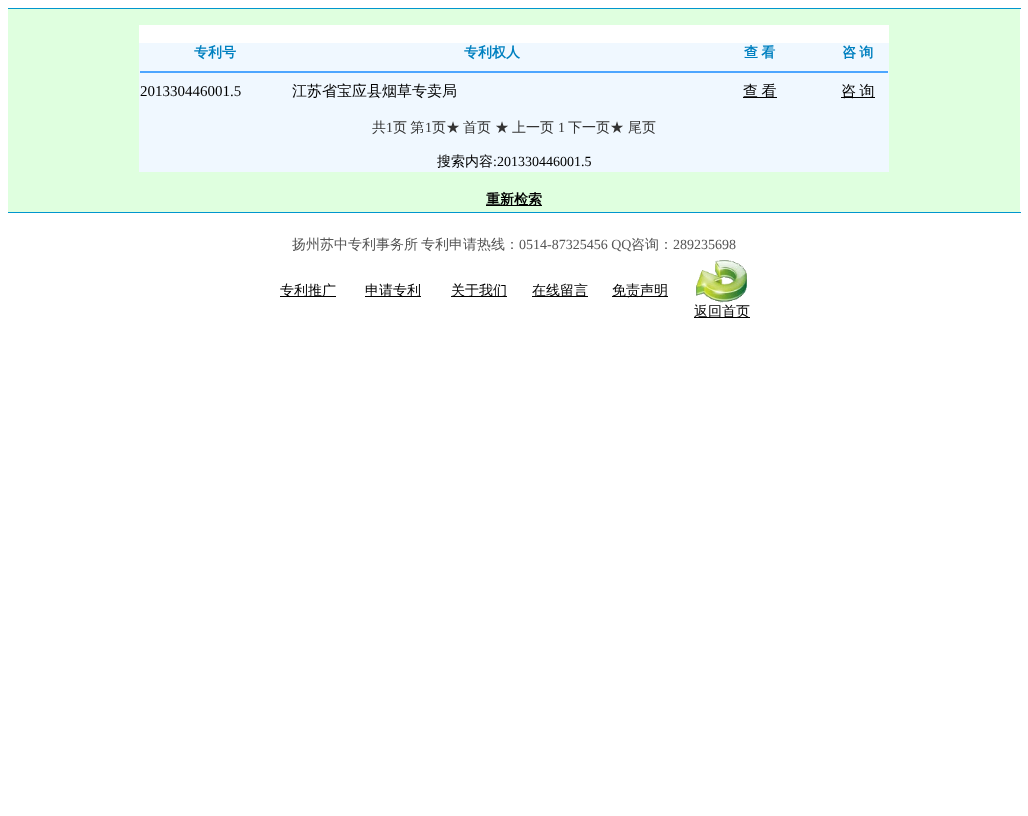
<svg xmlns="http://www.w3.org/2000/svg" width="1028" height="816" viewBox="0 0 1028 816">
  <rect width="100%" height="100%" fill="#fff"/>
  <path d="M8 9h1012v203H8z" fill="#dfffdf"/>
  <path d="M8 8h1013v1H8z" fill="#0096ce"/>
  <path d="M8 212h1013v1H8z" fill="#0096ce"/>
  <path d="M139 25h750v18H139z" fill="#fff"/>
  <path d="M139 43h750v129H139z" fill="#f0f8ff"/>
  <path d="M140 71h748v2H140z" fill="#4da6ff"/>
  <path d="M743 97h34v1H743z" fill="#000"/>
  <path d="M841 97h34v1H841z" fill="#000"/>
  <path d="M486 205h56v1H486z" fill="#000"/>
  <path d="M280 296h56v1H280z" fill="#000"/>
  <path d="M365 296h56v1H365z" fill="#000"/>
  <path d="M451 296h56v1H451z" fill="#000"/>
  <path d="M532 296h56v1H532z" fill="#000"/>
  <path d="M612 296h56v1H612z" fill="#000"/>
  <image x="696" y="260" width="51" height="43" href="img/1.png"/>
  <path d="M694 317h56v1H694z" fill="#000"/>
  <g font-family="WenQuanYi Zen Hei" font-size="14" font-weight="bold" fill="#0080c0">
    <text x="194" y="57">专利号</text>
    <text x="464" y="57">专利权人</text>
    <text x="744" y="57" word-spacing="-1">查 看</text>
    <text x="842" y="57" word-spacing="-1">咨 询</text>
  </g>
  <text x="140" y="96" font-family="Liberation Serif" font-size="15" fill="#000">201330446001.5</text>
  <g font-family="WenQuanYi Zen Hei" font-size="15" font-weight="500" fill="#000">
    <text x="292" y="96">江苏省宝应县烟草专卖局</text>
    <text x="743" y="96" word-spacing="-1">查 看</text>
    <text x="841" y="96" word-spacing="-1">咨 询</text>
  </g>
  <text x="372" y="132" font-family="WenQuanYi Zen Hei" font-size="14" font-weight="500" fill="#333">共</text>
  <text x="386" y="132" font-family="Liberation Serif" font-size="14" fill="#333">1</text>
  <text x="393" y="132" word-spacing="-1" font-family="WenQuanYi Zen Hei" font-size="14" font-weight="500" fill="#333">页 第</text>
  <text x="425" y="132" font-family="Liberation Serif" font-size="14" fill="#333">1</text>
  <g font-family="WenQuanYi Zen Hei" font-size="14" font-weight="500" fill="#333">
    <text x="432" y="132">页★</text>
    <text x="463" y="132">首页</text>
    <text x="495" y="132">★</text>
    <text x="512" y="132">上一页</text>
  </g>
  <text x="558" y="132" font-family="Liberation Serif" font-size="14" fill="#333">1</text>
  <g font-family="WenQuanYi Zen Hei" font-size="14" font-weight="500" fill="#333">
    <text x="568" y="132">下一页★</text>
    <text x="628" y="132">尾页</text>
  </g>
  <text x="437" y="166" font-family="WenQuanYi Zen Hei" font-size="14" font-weight="500" fill="#000">搜索内容</text>
  <text x="493" y="166" font-family="Liberation Serif" font-size="14" fill="#000">:201330446001.5</text>
  <text x="486" y="204" font-family="WenQuanYi Zen Hei" font-size="14" font-weight="bold" fill="#000">重新检索</text>
  <g font-family="WenQuanYi Zen Hei" font-size="14" font-weight="500" fill="#555">
    <text x="292" y="249">扬州苏中专利事务所</text>
    <text x="421" y="249">专利申请热线：</text>
  </g>
  <text x="519" y="249" font-family="Liberation Serif" font-size="14" fill="#555">0514-87325456 QQ</text>
  <text x="631" y="249" font-family="WenQuanYi Zen Hei" font-size="14" font-weight="500" fill="#555">咨询：</text>
  <text x="673" y="249" font-family="Liberation Serif" font-size="14" fill="#555">289235698</text>
  <g font-family="WenQuanYi Zen Hei" font-size="14" font-weight="500" fill="#000">
    <text x="280" y="295">专利推广</text>
    <text x="365" y="295">申请专利</text>
    <text x="451" y="295">关于我们</text>
    <text x="532" y="295">在线留言</text>
    <text x="612" y="295">免责声明</text>
    <text x="694" y="316">返回首页</text>
  </g>
</svg>
